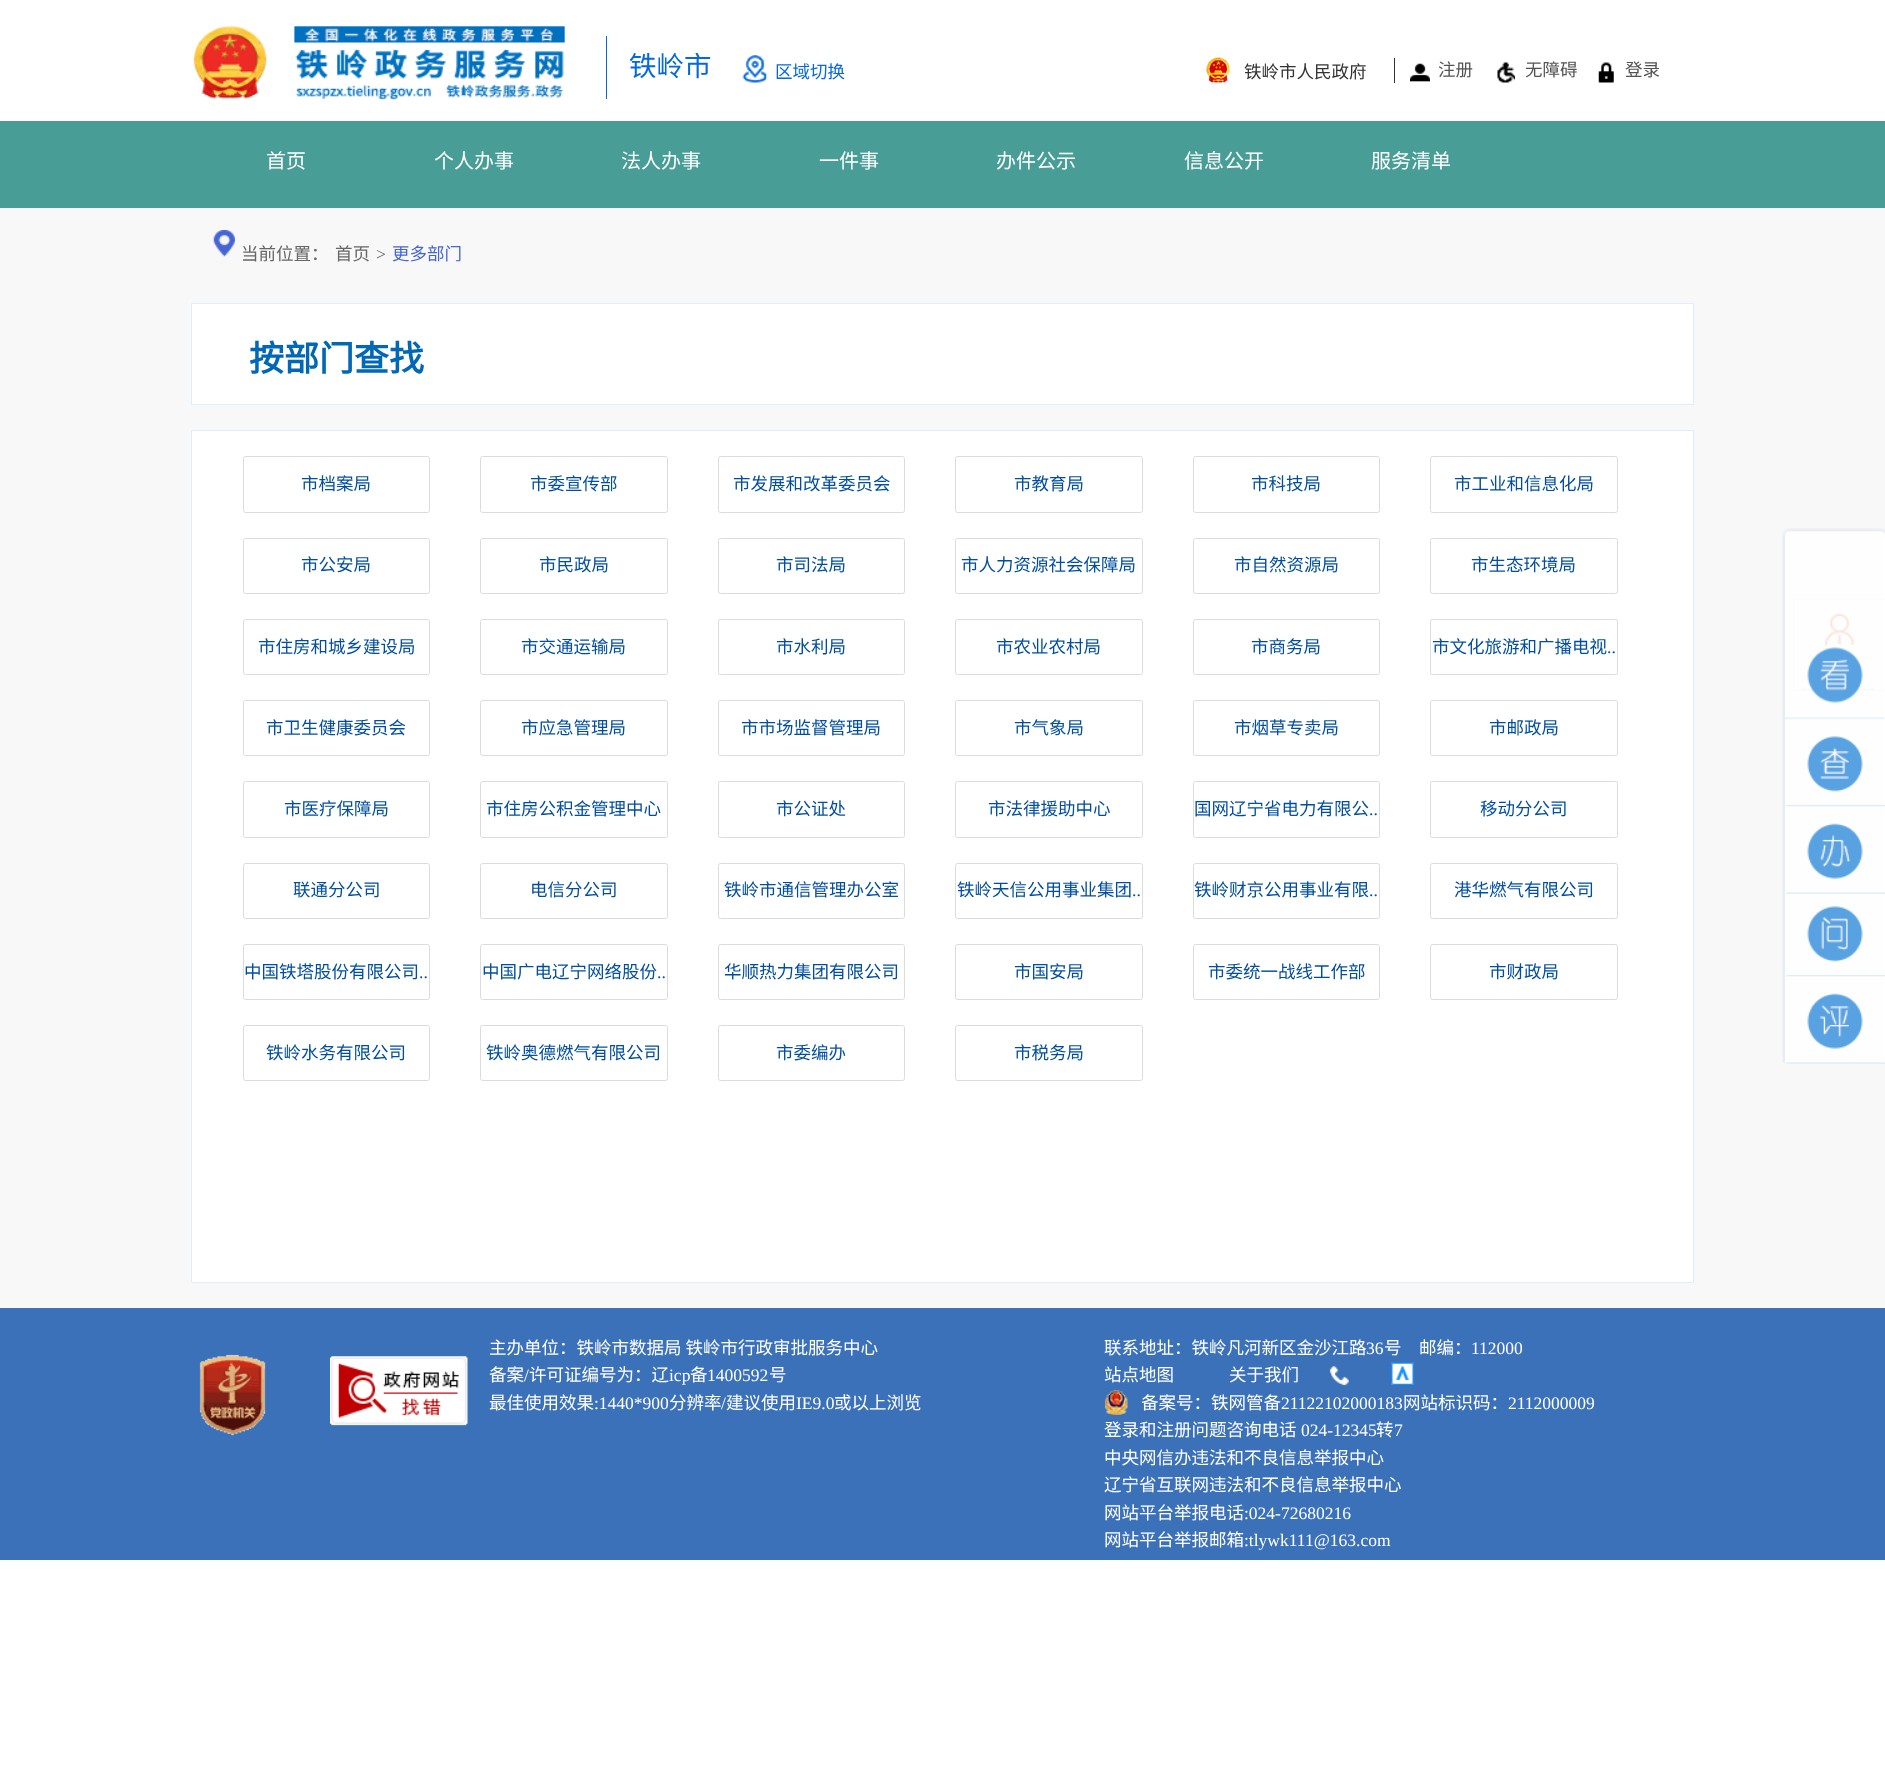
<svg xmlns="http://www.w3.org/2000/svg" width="1885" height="1777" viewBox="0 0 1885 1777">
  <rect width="100%" height="100%" fill="#fff"/>
  <path d="M0 208h1885v1100H0z" fill="#f8f8f8"/>
  <image x="193" y="26" width="372" height="74" href="img/1.png"/>
  <path d="M606 36h1v63H606z" fill="#0669db"/>
  <image x="742" y="55" width="25" height="28" href="img/2.png"/>
  <image x="1206" y="57" width="24" height="26" href="img/3.png"/>
  <path d="M1394 58h1v25H1394z" fill="#303030"/>
  <image x="1410" y="63" width="20" height="19" href="img/4.png"/>
  <image x="1497" y="62" width="18" height="21" href="img/5.png"/>
  <image x="1598" y="62" width="16" height="21" href="img/6.png"/>
  <path d="M0 121h1885v87H0z" fill="#489d97"/>
  <image x="213" y="230" width="22" height="27" href="img/7.png"/>
  <path d="M191.5 303.5h1502v101H191.5z" fill="#fff" stroke="#ddeefc"/>
  <path d="M191.5 430.5h1502v852H191.5z" fill="#fff" stroke="#ddeefc"/>
  <rect x="243.5" y="456.5" width="186" height="56" rx="2" fill="none" stroke="#dcdcdc"/>
  <rect x="480.5" y="456.5" width="187" height="56" rx="2" fill="none" stroke="#dcdcdc"/>
  <rect x="718.5" y="456.5" width="186" height="56" rx="2" fill="none" stroke="#dcdcdc"/>
  <rect x="955.5" y="456.5" width="187" height="56" rx="2" fill="none" stroke="#dcdcdc"/>
  <rect x="1193.5" y="456.5" width="186" height="56" rx="2" fill="none" stroke="#dcdcdc"/>
  <rect x="1430.5" y="456.5" width="187" height="56" rx="2" fill="none" stroke="#dcdcdc"/>
  <rect x="243.5" y="538.5" width="186" height="55" rx="2" fill="none" stroke="#dcdcdc"/>
  <rect x="480.5" y="538.5" width="187" height="55" rx="2" fill="none" stroke="#dcdcdc"/>
  <rect x="718.5" y="538.5" width="186" height="55" rx="2" fill="none" stroke="#dcdcdc"/>
  <rect x="955.5" y="538.5" width="187" height="55" rx="2" fill="none" stroke="#dcdcdc"/>
  <rect x="1193.5" y="538.5" width="186" height="55" rx="2" fill="none" stroke="#dcdcdc"/>
  <rect x="1430.5" y="538.5" width="187" height="55" rx="2" fill="none" stroke="#dcdcdc"/>
  <rect x="243.5" y="619.5" width="186" height="55" rx="2" fill="none" stroke="#dcdcdc"/>
  <rect x="480.5" y="619.5" width="187" height="55" rx="2" fill="none" stroke="#dcdcdc"/>
  <rect x="718.5" y="619.5" width="186" height="55" rx="2" fill="none" stroke="#dcdcdc"/>
  <rect x="955.5" y="619.5" width="187" height="55" rx="2" fill="none" stroke="#dcdcdc"/>
  <rect x="1193.5" y="619.5" width="186" height="55" rx="2" fill="none" stroke="#dcdcdc"/>
  <rect x="1430.5" y="619.5" width="187" height="55" rx="2" fill="none" stroke="#dcdcdc"/>
  <rect x="243.5" y="700.5" width="186" height="55" rx="2" fill="none" stroke="#dcdcdc"/>
  <rect x="480.5" y="700.5" width="187" height="55" rx="2" fill="none" stroke="#dcdcdc"/>
  <rect x="718.5" y="700.5" width="186" height="55" rx="2" fill="none" stroke="#dcdcdc"/>
  <rect x="955.5" y="700.5" width="187" height="55" rx="2" fill="none" stroke="#dcdcdc"/>
  <rect x="1193.5" y="700.5" width="186" height="55" rx="2" fill="none" stroke="#dcdcdc"/>
  <rect x="1430.5" y="700.5" width="187" height="55" rx="2" fill="none" stroke="#dcdcdc"/>
  <rect x="243.5" y="781.5" width="186" height="56" rx="2" fill="none" stroke="#dcdcdc"/>
  <rect x="480.5" y="781.5" width="187" height="56" rx="2" fill="none" stroke="#dcdcdc"/>
  <rect x="718.5" y="781.5" width="186" height="56" rx="2" fill="none" stroke="#dcdcdc"/>
  <rect x="955.5" y="781.5" width="187" height="56" rx="2" fill="none" stroke="#dcdcdc"/>
  <rect x="1193.5" y="781.5" width="186" height="56" rx="2" fill="none" stroke="#dcdcdc"/>
  <rect x="1430.5" y="781.5" width="187" height="56" rx="2" fill="none" stroke="#dcdcdc"/>
  <rect x="243.5" y="863.5" width="186" height="55" rx="2" fill="none" stroke="#dcdcdc"/>
  <rect x="480.5" y="863.5" width="187" height="55" rx="2" fill="none" stroke="#dcdcdc"/>
  <rect x="718.5" y="863.5" width="186" height="55" rx="2" fill="none" stroke="#dcdcdc"/>
  <rect x="955.5" y="863.5" width="187" height="55" rx="2" fill="none" stroke="#dcdcdc"/>
  <rect x="1193.5" y="863.5" width="186" height="55" rx="2" fill="none" stroke="#dcdcdc"/>
  <rect x="1430.5" y="863.5" width="187" height="55" rx="2" fill="none" stroke="#dcdcdc"/>
  <rect x="243.5" y="944.5" width="186" height="55" rx="2" fill="none" stroke="#dcdcdc"/>
  <rect x="480.5" y="944.5" width="187" height="55" rx="2" fill="none" stroke="#dcdcdc"/>
  <rect x="718.5" y="944.5" width="186" height="55" rx="2" fill="none" stroke="#dcdcdc"/>
  <rect x="955.5" y="944.5" width="187" height="55" rx="2" fill="none" stroke="#dcdcdc"/>
  <rect x="1193.5" y="944.5" width="186" height="55" rx="2" fill="none" stroke="#dcdcdc"/>
  <rect x="1430.5" y="944.5" width="187" height="55" rx="2" fill="none" stroke="#dcdcdc"/>
  <rect x="243.5" y="1025.5" width="186" height="55" rx="2" fill="none" stroke="#dcdcdc"/>
  <rect x="480.5" y="1025.5" width="187" height="55" rx="2" fill="none" stroke="#dcdcdc"/>
  <rect x="718.5" y="1025.5" width="186" height="55" rx="2" fill="none" stroke="#dcdcdc"/>
  <rect x="955.5" y="1025.5" width="187" height="55" rx="2" fill="none" stroke="#dcdcdc"/>
  <path d="M1793.5 599.5h91v91H1793.5z" fill="none" stroke="#e1f1fe"/>
  <image x="1801" y="688" width="73" height="2" href="img/8.png"/>
  <image x="1825" y="613" width="29" height="32" href="img/9.png"/>
  <image x="1782" y="528" width="103" height="535" href="img/10.png"/>
  <image x="1785" y="647" width="99" height="73" href="img/11.png"/>
  <image x="1786" y="736" width="99" height="71" href="img/12.png"/>
  <image x="1786" y="823" width="99" height="71" href="img/13.png"/>
  <image x="1786" y="906" width="99" height="71" href="img/14.png"/>
  <image x="1786" y="993" width="99" height="71" href="img/15.png"/>
  <path d="M0 1308h1885v252H0z" fill="#3b71b9"/>
  <image x="199" y="1354" width="67" height="82" href="img/16.png"/>
  <image x="330" y="1356" width="138" height="70" href="img/17.png"/>
  <image x="1329" y="1366" width="20" height="20" href="img/18.png"/>
  <image x="1391" y="1362" width="23" height="23" href="img/19.png"/>
  <image x="1104" y="1390" width="24" height="25" href="img/20.png"/>
  <text x="629" y="76" font-family="Noto Sans CJK SC" font-size="27.5" fill="#0669db">铁岭市</text>
  <text x="775" y="78" font-family="Noto Sans CJK SC" font-size="17.5" fill="#0669db">区域切换</text>
  <text x="1244" y="78" font-family="Noto Sans CJK SC" font-size="17.5" fill="#333">铁岭市人民政府</text>
  <g font-family="Noto Sans CJK SC" font-size="17.5" fill="#535353">
    <text x="1438" y="76">注册</text>
    <text x="1525" y="76">无障碍</text>
    <text x="1625" y="76">登录</text>
  </g>
  <g font-family="Noto Sans CJK SC" font-size="20" fill="#fff">
    <text x="266" y="168">首页</text>
    <text x="434" y="168">个人办事</text>
    <text x="621" y="168">法人办事</text>
    <text x="819" y="168">一件事</text>
    <text x="996" y="168">办件公示</text>
    <text x="1184" y="168">信息公开</text>
    <text x="1371" y="168">服务清单</text>
  </g>
  <g font-family="Noto Sans CJK SC" font-size="17.5" fill="#666">
    <text x="241" y="260">当前位置：</text>
    <text x="335" y="260">首页</text>
  </g>
  <text x="376" y="260" font-family="Liberation Serif" font-size="17.5" fill="#666">&gt;</text>
  <text x="392" y="260" font-family="Noto Sans CJK SC" font-size="17.5" fill="#4665d5">更多部门</text>
  <text x="249" y="371" font-family="Noto Sans CJK SC" font-size="35" font-weight="bold" fill="#0068b7">按部门查找</text>
  <g font-family="Noto Sans CJK SC" font-size="17.5" fill="#014e9e">
    <text x="301" y="490">市档案局</text>
    <text x="530" y="490">市委宣传部</text>
    <text x="733" y="490">市发展和改革委员会</text>
    <text x="1014" y="490">市教育局</text>
    <text x="1251" y="490">市科技局</text>
    <text x="1454" y="490">市工业和信息化局</text>
    <text x="301" y="571">市公安局</text>
    <text x="539" y="571">市民政局</text>
    <text x="776" y="571">市司法局</text>
    <text x="961" y="571">市人力资源社会保障局</text>
    <text x="1234" y="571">市自然资源局</text>
    <text x="1471" y="571">市生态环境局</text>
    <text x="258" y="653">市住房和城乡建设局</text>
    <text x="521" y="653">市交通运输局</text>
    <text x="776" y="653">市水利局</text>
    <text x="996" y="653">市农业农村局</text>
    <text x="1251" y="653">市商务局</text>
    <text x="1432" y="653">市文化旅游和广播电视</text>
  </g>
  <text x="1607" y="653" font-family="Liberation Serif" font-size="17.5" fill="#014e9e">..</text>
  <g font-family="Noto Sans CJK SC" font-size="17.5" fill="#014e9e">
    <text x="266" y="734">市卫生健康委员会</text>
    <text x="521" y="734">市应急管理局</text>
    <text x="741" y="734">市市场监督管理局</text>
    <text x="1014" y="734">市气象局</text>
    <text x="1234" y="734">市烟草专卖局</text>
    <text x="1489" y="734">市邮政局</text>
    <text x="284" y="815">市医疗保障局</text>
    <text x="486" y="815">市住房公积金管理中心</text>
    <text x="776" y="815">市公证处</text>
    <text x="988" y="815">市法律援助中心</text>
    <text x="1194" y="815">国网辽宁省电力有限公</text>
  </g>
  <text x="1369" y="815" font-family="Liberation Serif" font-size="17.5" fill="#014e9e">..</text>
  <g font-family="Noto Sans CJK SC" font-size="17.5" fill="#014e9e">
    <text x="1480" y="815">移动分公司</text>
    <text x="293" y="896">联通分公司</text>
    <text x="530" y="896">电信分公司</text>
    <text x="724" y="896">铁岭市通信管理办公室</text>
    <text x="957" y="896">铁岭天信公用事业集团</text>
  </g>
  <text x="1132" y="896" font-family="Liberation Serif" font-size="17.5" fill="#014e9e">..</text>
  <text x="1194" y="896" font-family="Noto Sans CJK SC" font-size="17.5" fill="#014e9e">铁岭财京公用事业有限</text>
  <text x="1369" y="896" font-family="Liberation Serif" font-size="17.5" fill="#014e9e">..</text>
  <g font-family="Noto Sans CJK SC" font-size="17.5" fill="#014e9e">
    <text x="1454" y="896">港华燃气有限公司</text>
    <text x="244" y="978">中国铁塔股份有限公司</text>
  </g>
  <text x="419" y="978" font-family="Liberation Serif" font-size="17.5" fill="#014e9e">..</text>
  <text x="482" y="978" font-family="Noto Sans CJK SC" font-size="17.5" fill="#014e9e">中国广电辽宁网络股份</text>
  <text x="657" y="978" font-family="Liberation Serif" font-size="17.5" fill="#014e9e">..</text>
  <g font-family="Noto Sans CJK SC" font-size="17.5" fill="#014e9e">
    <text x="724" y="978">华顺热力集团有限公司</text>
    <text x="1014" y="978">市国安局</text>
    <text x="1208" y="978">市委统一战线工作部</text>
    <text x="1489" y="978">市财政局</text>
    <text x="266" y="1059">铁岭水务有限公司</text>
    <text x="486" y="1059">铁岭奥德燃气有限公司</text>
    <text x="776" y="1059">市委编办</text>
    <text x="1014" y="1059">市税务局</text>
  </g>
  <g font-family="Noto Sans CJK SC" font-size="17.5" fill="#fff">
    <text x="489" y="1354">主办单位：铁岭市数据局 铁岭市行政审批服务中心</text>
    <text x="489" y="1381">备案</text>
  </g>
  <text x="524" y="1381" font-family="Liberation Serif" font-size="17.5" fill="#fff">/</text>
  <text x="529" y="1381" font-family="Noto Sans CJK SC" font-size="17.5" fill="#fff">许可证编号为：辽</text>
  <text x="669" y="1381" font-family="Liberation Serif" font-size="17.5" fill="#fff">icp</text>
  <text x="690" y="1381" font-family="Noto Sans CJK SC" font-size="17.5" fill="#fff">备</text>
  <text x="707" y="1381" font-family="Liberation Serif" font-size="17.5" fill="#fff">1400592</text>
  <g font-family="Noto Sans CJK SC" font-size="17.5" fill="#fff">
    <text x="769" y="1381">号</text>
    <text x="489" y="1409">最佳使用效果</text>
  </g>
  <text x="594" y="1409" font-family="Liberation Serif" font-size="17.5" fill="#fff">:1440*900</text>
  <text x="669" y="1409" font-family="Noto Sans CJK SC" font-size="17.5" fill="#fff">分辨率</text>
  <text x="721" y="1409" font-family="Liberation Serif" font-size="17.5" fill="#fff">/</text>
  <text x="726" y="1409" font-family="Noto Sans CJK SC" font-size="17.5" fill="#fff">建议使用</text>
  <text x="796" y="1409" font-family="Liberation Serif" font-size="17.5" fill="#fff">IE9.0</text>
  <g font-family="Noto Sans CJK SC" font-size="17.5" fill="#fff">
    <text x="834" y="1409">或以上浏览</text>
    <text x="1104" y="1354">联系地址：铁岭凡河新区金沙江路</text>
  </g>
  <text x="1366" y="1354" font-family="Liberation Serif" font-size="17.5" fill="#fff">36</text>
  <text x="1384" y="1354" font-family="Noto Sans CJK SC" font-size="17.5" fill="#fff">号　邮编：</text>
  <text x="1471" y="1354" font-family="Liberation Serif" font-size="17.5" fill="#fff">112000</text>
  <g font-family="Noto Sans CJK SC" font-size="17.5" fill="#fff">
    <text x="1104" y="1381">站点地图</text>
    <text x="1229" y="1381">关于我们</text>
    <text x="1141" y="1409">备案号：铁网管备</text>
  </g>
  <text x="1281" y="1409" font-family="Liberation Serif" font-size="17.5" fill="#fff">21122102000183</text>
  <text x="1403" y="1409" font-family="Noto Sans CJK SC" font-size="17.5" fill="#fff">网站标识码：</text>
  <text x="1508" y="1409" font-family="Liberation Serif" font-size="17.5" fill="#fff">2112000009</text>
  <text x="1104" y="1436" font-family="Noto Sans CJK SC" font-size="17.5" fill="#fff">登录和注册问题咨询电话</text>
  <text x="1301" y="1436" font-family="Liberation Serif" font-size="17.5" fill="#fff">024-12345</text>
  <text x="1376" y="1436" font-family="Noto Sans CJK SC" font-size="17.5" fill="#fff">转</text>
  <text x="1394" y="1436" font-family="Liberation Serif" font-size="17.5" fill="#fff">7</text>
  <g font-family="Noto Sans CJK SC" font-size="17.5" fill="#fff">
    <text x="1104" y="1464">中央网信办违法和不良信息举报中心</text>
    <text x="1104" y="1491">辽宁省互联网违法和不良信息举报中心</text>
    <text x="1104" y="1519">网站平台举报电话</text>
  </g>
  <text x="1244" y="1519" font-family="Liberation Serif" font-size="17.5" fill="#fff">:024-72680216</text>
  <text x="1104" y="1546" font-family="Noto Sans CJK SC" font-size="17.5" fill="#fff">网站平台举报邮箱</text>
  <text x="1244" y="1546" font-family="Liberation Serif" font-size="17.5" fill="#fff">:tlywk111@163.com</text>
</svg>
